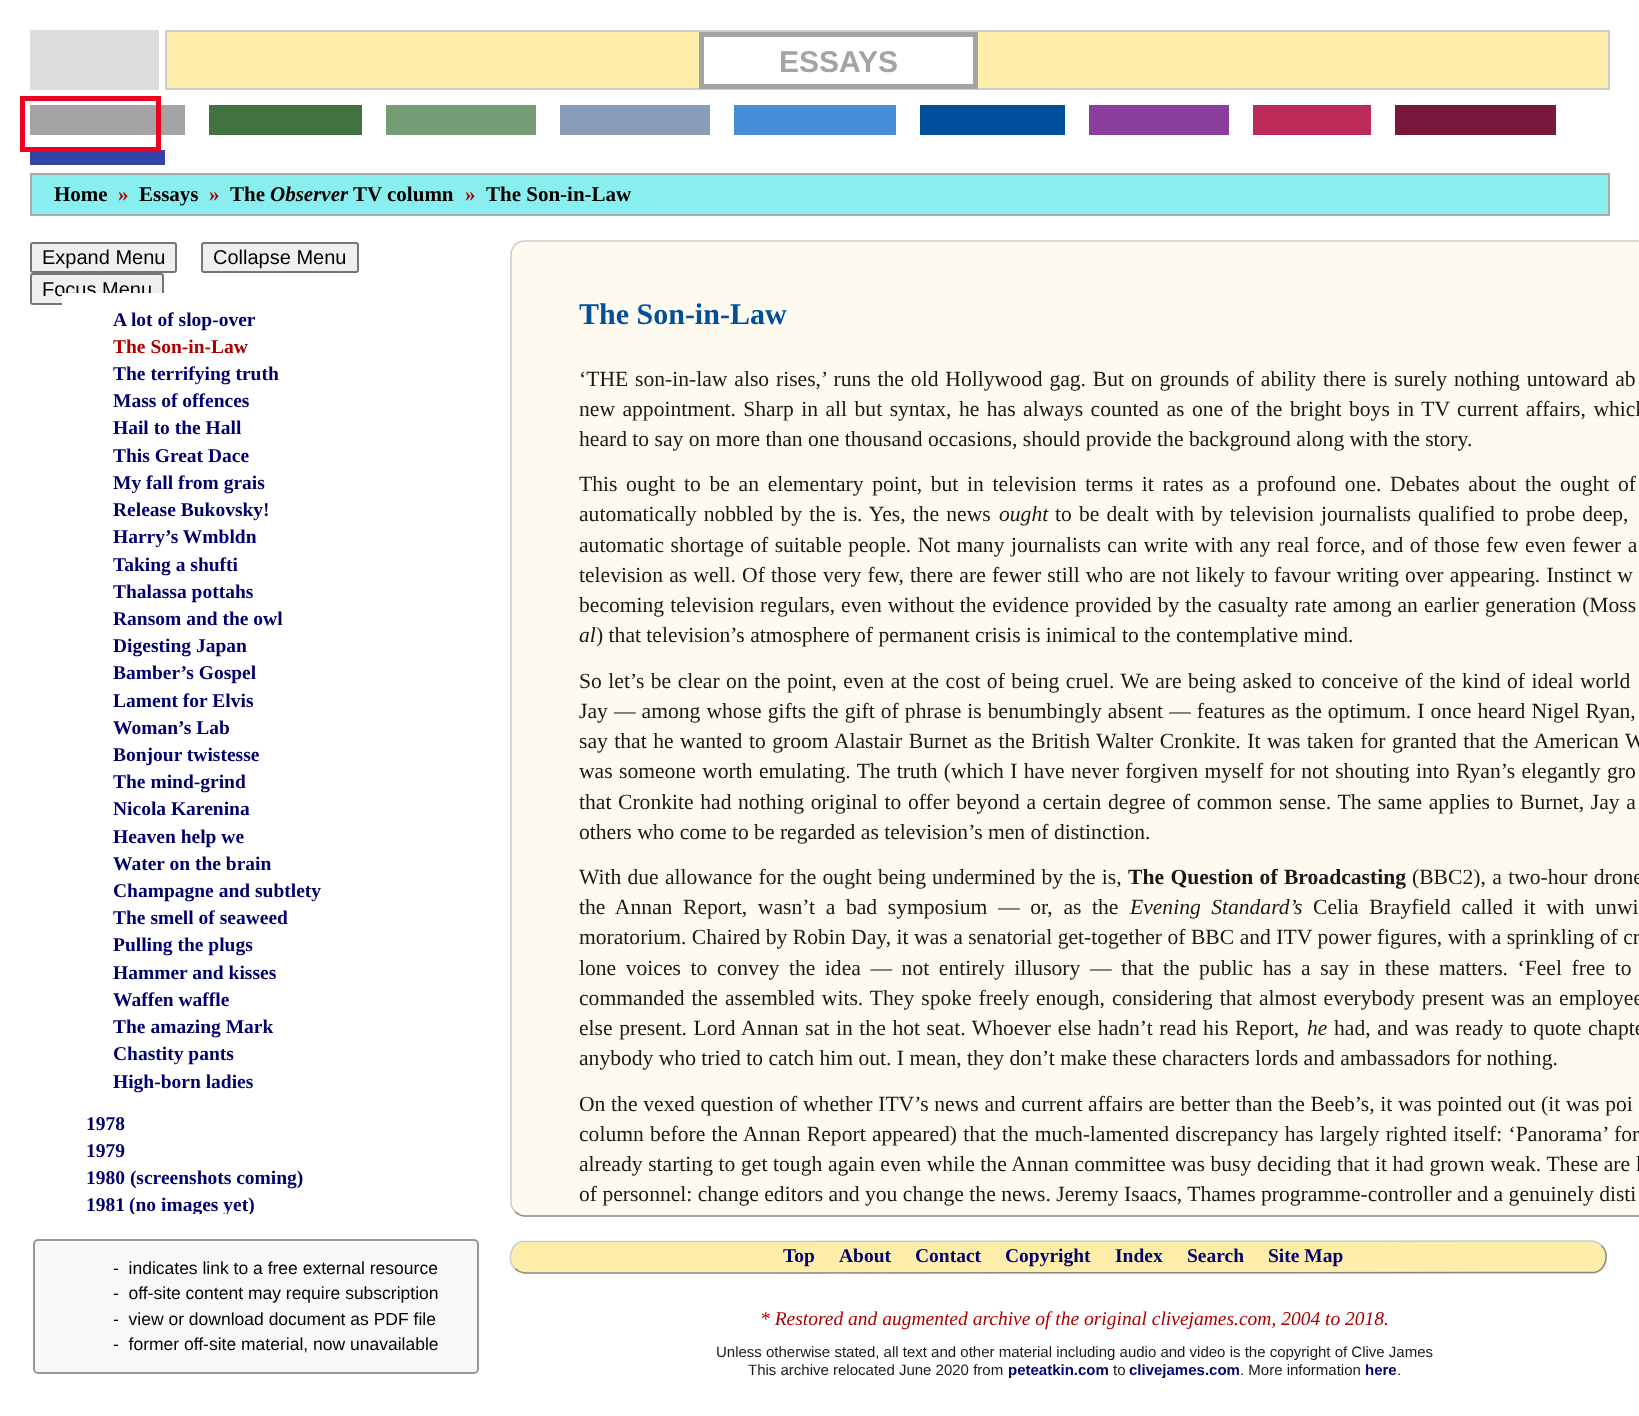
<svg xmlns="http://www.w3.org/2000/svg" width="1639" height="1416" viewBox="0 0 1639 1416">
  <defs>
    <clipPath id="clip1"><path d="M30 293h450v921H30z"/></clipPath>
  </defs>
  <rect width="100%" height="100%" fill="#fff"/>
  <path d="M30 30h129v60H30z" fill="#ddd"/>
  <path d="M166 31h1443v58H166z" fill="#fea" stroke="#ccc" stroke-width="2"/>
  <path d="M701.5 34.5h274v52H701.5z" fill="#fff" stroke="#a5a3a4" stroke-width="5"/>
  <path d="M30 105h155v30H30z" fill="#a5a3a4"/>
  <path d="M30 150h135v15H30z" fill="#3443a8"/>
  <path d="M22.5 98.5h136v51H22.5z" fill="none" stroke="#e02" stroke-width="5"/>
  <path d="M209 105h153v30H209z" fill="#417340"/>
  <path d="M386 105h150v30H386z" fill="#749d75"/>
  <path d="M560 105h150v30H560z" fill="#8a9db8"/>
  <path d="M734 105h162v30H734z" fill="#468dd8"/>
  <path d="M920 105h145v30H920z" fill="#004f9c"/>
  <path d="M1089 105h140v30H1089z" fill="#8a3d9d"/>
  <path d="M1253 105h118v30H1253z" fill="#bd2b58"/>
  <path d="M1395 105h161v30H1395z" fill="#78183d"/>
  <path d="M31 174h1578v41H31z" fill="#8ee" stroke="#aaa" stroke-width="2"/>
  <rect x="31" y="243" width="145" height="29" rx="2" fill="#efefef" stroke="#767676" stroke-width="2"/>
  <rect x="202" y="243" width="156" height="29" rx="2" fill="#efefef" stroke="#767676" stroke-width="2"/>
  <rect x="31" y="274" width="132" height="30" rx="2" fill="#efefef" stroke="#767676" stroke-width="2"/>
  <rect x="34" y="1240" width="444" height="133" rx="4" fill="#f8f8f8" stroke="#999" stroke-width="2"/>
  <rect x="510" y="240" width="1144" height="977" rx="15" fill="#fffaf0"/>
  <path d="M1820.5 245C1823 247.5 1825 251 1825 255V1201.5C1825 1205.5 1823 1209 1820.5 1211.5C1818 1214 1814.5 1216 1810.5 1216H525C521 1216 517.5 1214 515 1211.5" fill="none" stroke="#888" stroke-width="1.5"/>
  <path d="M515 1211.5C512.5 1209 511 1205.5 511 1201.5V255C511 251 512.5 247.5 515 245C517.5 242.5 521 241 525 241H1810.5C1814.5 241 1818 242.5 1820.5 245" fill="none" stroke="#ccc" stroke-width="1.5"/>
  <rect x="510" y="1241" width="1097" height="33" rx="15" fill="#fea"/>
  <path d="M1601.5 1245.5C1610 1253.5 1606 1270 1594.5 1272.5L525 1273C521 1272.5 517.5 1271 515 1268.5" fill="none" stroke="#888" stroke-width="1.5"/>
  <path d="M515 1268.5C506.5 1260.5 510.5 1244 522 1241.5L1591.5 1241C1595.5 1241.5 1599 1243 1601.5 1245.5" fill="none" stroke="#ccc" stroke-width="1.5"/>
  <text x="779" y="72" font-family="Liberation Sans" font-size="30" font-weight="bold" fill="#a5a3a4">ESSAYS</text>
  <text x="54" y="201" font-family="Liberation Serif" font-size="21" font-weight="bold" fill="#000">Home</text>
  <text x="118" y="201" font-family="Liberation Serif" font-size="21" font-weight="bold" fill="#a00">»</text>
  <text x="139" y="201" font-family="Liberation Serif" font-size="21" font-weight="bold" fill="#000">Essays</text>
  <text x="209" y="201" font-family="Liberation Serif" font-size="21" font-weight="bold" fill="#a00">»</text>
  <text x="230" y="201" font-family="Liberation Serif" font-size="21" font-weight="bold" fill="#000">The</text>
  <text x="270" y="201" font-family="Liberation Serif" font-size="21" font-weight="bold" font-style="italic" fill="#000">Observer</text>
  <text x="353" y="201" font-family="Liberation Serif" font-size="21" font-weight="bold" fill="#000">TV column</text>
  <text x="465" y="201" font-family="Liberation Serif" font-size="21" font-weight="bold" fill="#a00">»</text>
  <text x="486" y="201" font-family="Liberation Serif" font-size="21" font-weight="bold" fill="#000">The Son-in-Law</text>
  <g font-family="Liberation Sans" font-size="20" fill="#000">
    <text x="42" y="264">Expand Menu</text>
    <text x="213" y="264">Collapse Menu</text>
    <text x="42" y="296">Focus Menu</text>
  </g>
  <path d="M62 293h102v12H62z" fill="#fff"/>
  <text x="113" y="326" font-family="Liberation Serif" font-size="19.5" font-weight="bold" fill="#00006c">A lot of slop-over</text>
  <text x="113" y="353" font-family="Liberation Serif" font-size="19.5" font-weight="bold" fill="#a00">The Son-in-Law</text>
  <g font-family="Liberation Serif" font-size="19.5" font-weight="bold" fill="#00006c">
    <text x="113" y="380">The terrifying truth</text>
    <text x="113" y="407">Mass of offences</text>
    <text x="113" y="434">Hail to the Hall</text>
    <text x="113" y="462">This Great Dace</text>
    <text x="113" y="489">My fall from grais</text>
    <text x="113" y="516">Release Bukovsky!</text>
    <text x="113" y="543">Harry’s Wmbldn</text>
    <text x="113" y="571">Taking a shufti</text>
    <text x="113" y="598">Thalassa pottahs</text>
    <text x="113" y="625">Ransom and the owl</text>
    <text x="113" y="652">Digesting Japan</text>
    <text x="113" y="679">Bamber’s Gospel</text>
    <text x="113" y="707">Lament for Elvis</text>
    <text x="113" y="734">Woman’s Lab</text>
    <text x="113" y="761">Bonjour twistesse</text>
    <text x="113" y="788">The mind-grind</text>
    <text x="113" y="815">Nicola Karenina</text>
    <text x="113" y="843">Heaven help we</text>
    <text x="113" y="870">Water on the brain</text>
    <text x="113" y="897">Champagne and subtlety</text>
    <text x="113" y="924">The smell of seaweed</text>
    <text x="113" y="951">Pulling the plugs</text>
    <text x="113" y="979">Hammer and kisses</text>
    <text x="113" y="1006">Waffen waffle</text>
    <text x="113" y="1033">The amazing Mark</text>
    <text x="113" y="1060">Chastity pants</text>
    <text x="113" y="1088">High-born ladies</text>
    <text x="86" y="1130">1978</text>
    <text x="86" y="1157">1979</text>
    <text x="86" y="1184">1980 (screenshots coming)</text>
    <text x="86" y="1211">1981</text>
  </g>
  <g clip-path="url(#clip1)">
    <text x="129" y="1211" font-family="Liberation Serif" font-size="19.5" font-weight="bold" fill="#00006c">(no images yet)</text>
  </g>
  <g font-family="Liberation Sans" font-size="17.5" fill="#000">
    <text x="113" y="1274" xml:space="preserve">-  indicates link to a free external resource</text>
    <text x="113" y="1299" xml:space="preserve">-  off-site content may require subscription</text>
    <text x="113" y="1325" xml:space="preserve">-  view or download document as PDF file</text>
    <text x="113" y="1350" xml:space="preserve">-  former off-site material, now unavailable</text>
  </g>
  <text x="579" y="324" font-family="Liberation Serif" font-size="30" font-weight="bold" fill="#004f9d">The Son-in-Law</text>
  <g font-family="Liberation Serif" font-size="21.6" fill="#181818">
    <text x="579" y="386" word-spacing="1.5">‘THE son-in-law also rises,’ runs the old Hollywood gag. But on grounds of ability there is surely nothing untoward ab</text>
    <text x="579" y="416" word-spacing="2.1">new appointment. Sharp in all but syntax, he has always counted as one of the bright boys in TV current affairs, which</text>
    <text x="579" y="446">heard to say on more than one thousand occasions, should provide the background along with the story.</text>
    <text x="579" y="491" word-spacing="3.3">This ought to be an elementary point, but in television terms it rates as a profound one. Debates about the ought of</text>
    <text x="579" y="521" word-spacing="1.75">automatically nobbled by the is. Yes, the news</text>
  </g>
  <text x="999" y="521" font-family="Liberation Serif" font-size="21.6" font-style="italic" fill="#181818">ought</text>
  <g font-family="Liberation Serif" font-size="21.6" fill="#181818">
    <text x="1055" y="521" word-spacing="1.75">to be dealt with by television journalists qualified to probe deep,</text>
    <text x="579" y="552" word-spacing="1.05">automatic shortage of suitable people. Not many journalists can write with any real force, and of those few even fewer a</text>
    <text x="579" y="582" word-spacing="0.8">television as well. Of those very few, there are fewer still who are not likely to favour writing over appearing. Instinct w</text>
    <text x="579" y="612" word-spacing="0.6">becoming television regulars, even without the evidence provided by the casualty rate among an earlier generation (Moss</text>
  </g>
  <text x="579" y="642" font-family="Liberation Serif" font-size="21.6" font-style="italic" fill="#181818">al</text>
  <g font-family="Liberation Serif" font-size="21.6" fill="#181818">
    <text x="596" y="642">) that television’s atmosphere of permanent crisis is inimical to the contemplative mind.</text>
    <text x="579" y="688" word-spacing="1.1">So let’s be clear on the point, even at the cost of being cruel. We are being asked to conceive of the kind of ideal world</text>
    <text x="579" y="718" word-spacing="0.7">Jay — among whose gifts the gift of phrase is benumbingly absent — features as the optimum. I once heard Nigel Ryan,</text>
    <text x="579" y="748" word-spacing="1.1">say that he wanted to groom Alastair Burnet as the British Walter Cronkite. It was taken for granted that the American W</text>
    <text x="579" y="778" word-spacing="1">was someone worth emulating. The truth (which I have never forgiven myself for not shouting into Ryan’s elegantly gro</text>
    <text x="579" y="809" word-spacing="1.25">that Cronkite had nothing original to offer beyond a certain degree of common sense. The same applies to Burnet, Jay a</text>
    <text x="579" y="839">others who come to be regarded as television’s men of distinction.</text>
    <text x="579" y="884" word-spacing="0.8">With due allowance for the ought being undermined by the is,</text>
  </g>
  <text x="1128" y="884" word-spacing="1" font-family="Liberation Serif" font-size="21.6" font-weight="bold" fill="#181818">The Question of Broadcasting</text>
  <g font-family="Liberation Serif" font-size="21.6" fill="#181818">
    <text x="1412" y="884" word-spacing="1">(BBC2), a two-hour drone</text>
    <text x="579" y="914" word-spacing="5.25">the Annan Report, wasn’t a bad symposium — or, as the</text>
  </g>
  <text x="1130" y="914" word-spacing="5" font-family="Liberation Serif" font-size="21.6" font-style="italic" fill="#181818">Evening Standard’s</text>
  <g font-family="Liberation Serif" font-size="21.6" fill="#181818">
    <text x="1313" y="914" word-spacing="5.25">Celia Brayfield called it with unwi</text>
    <text x="579" y="944" word-spacing="0.1">moratorium. Chaired by Robin Day, it was a senatorial get-together of BBC and ITV power figures, with a sprinkling of cr</text>
    <text x="579" y="975" word-spacing="4.2">lone voices to convey the idea — not entirely illusory — that the public has a say in these matters. ‘Feel free to</text>
    <text x="579" y="1005" word-spacing="1.6">commanded the assembled wits. They spoke freely enough, considering that almost everybody present was an employee</text>
    <text x="579" y="1035" word-spacing="1.25">else present. Lord Annan sat in the hot seat. Whoever else hadn’t read his Report,</text>
  </g>
  <text x="1307" y="1035" font-family="Liberation Serif" font-size="21.6" font-style="italic" fill="#181818">he</text>
  <g font-family="Liberation Serif" font-size="21.6" fill="#181818">
    <text x="1334" y="1035" word-spacing="1.25">had, and was ready to quote chapte</text>
    <text x="579" y="1065">anybody who tried to catch him out. I mean, they don’t make these characters lords and ambassadors for nothing.</text>
    <text x="579" y="1111" word-spacing="0.3">On the vexed question of whether ITV’s news and current affairs are better than the Beeb’s, it was pointed out (it was poi</text>
    <text x="579" y="1141" word-spacing="0.9">column before the Annan Report appeared) that the much-lamented discrepancy has largely righted itself: ‘Panorama’ for</text>
    <text x="579" y="1171" word-spacing="0.25">already starting to get tough again even while the Annan committee was busy deciding that it had grown weak. These are l</text>
    <text x="579" y="1201">of personnel: change editors and you change the news. Jeremy Isaacs, Thames programme-controller and a genuinely disti</text>
  </g>
  <g font-family="Liberation Serif" font-size="19.5" font-weight="bold" fill="#00006c">
    <text x="783" y="1262">Top</text>
    <text x="839" y="1262">About</text>
    <text x="915" y="1262">Contact</text>
    <text x="1005" y="1262">Copyright</text>
    <text x="1115" y="1262">Index</text>
    <text x="1187" y="1262">Search</text>
    <text x="1268" y="1262">Site Map</text>
  </g>
  <text x="760" y="1325" font-family="Liberation Serif" font-size="19.5" font-style="italic" fill="#a00">* Restored and augmented archive of the original clivejames.com, 2004 to 2018.</text>
  <g font-family="Liberation Sans" font-size="15" fill="#181818">
    <text x="716" y="1357">Unless otherwise stated, all text and other material including audio and video is the copyright of Clive James</text>
    <text x="748" y="1375">This archive relocated June 2020 from</text>
  </g>
  <text x="1008" y="1375" font-family="Liberation Sans" font-size="15" font-weight="bold" fill="#00006c">peteatkin.com</text>
  <text x="1113" y="1375" font-family="Liberation Sans" font-size="15" fill="#181818">to</text>
  <text x="1129" y="1375" font-family="Liberation Sans" font-size="15" font-weight="bold" fill="#00006c">clivejames.com</text>
  <text x="1240" y="1375" font-family="Liberation Sans" font-size="15" fill="#181818">. More information</text>
  <text x="1365" y="1375" font-family="Liberation Sans" font-size="15" font-weight="bold" fill="#00006c">here</text>
  <text x="1397" y="1375" font-family="Liberation Sans" font-size="15" fill="#181818">.</text>
</svg>
